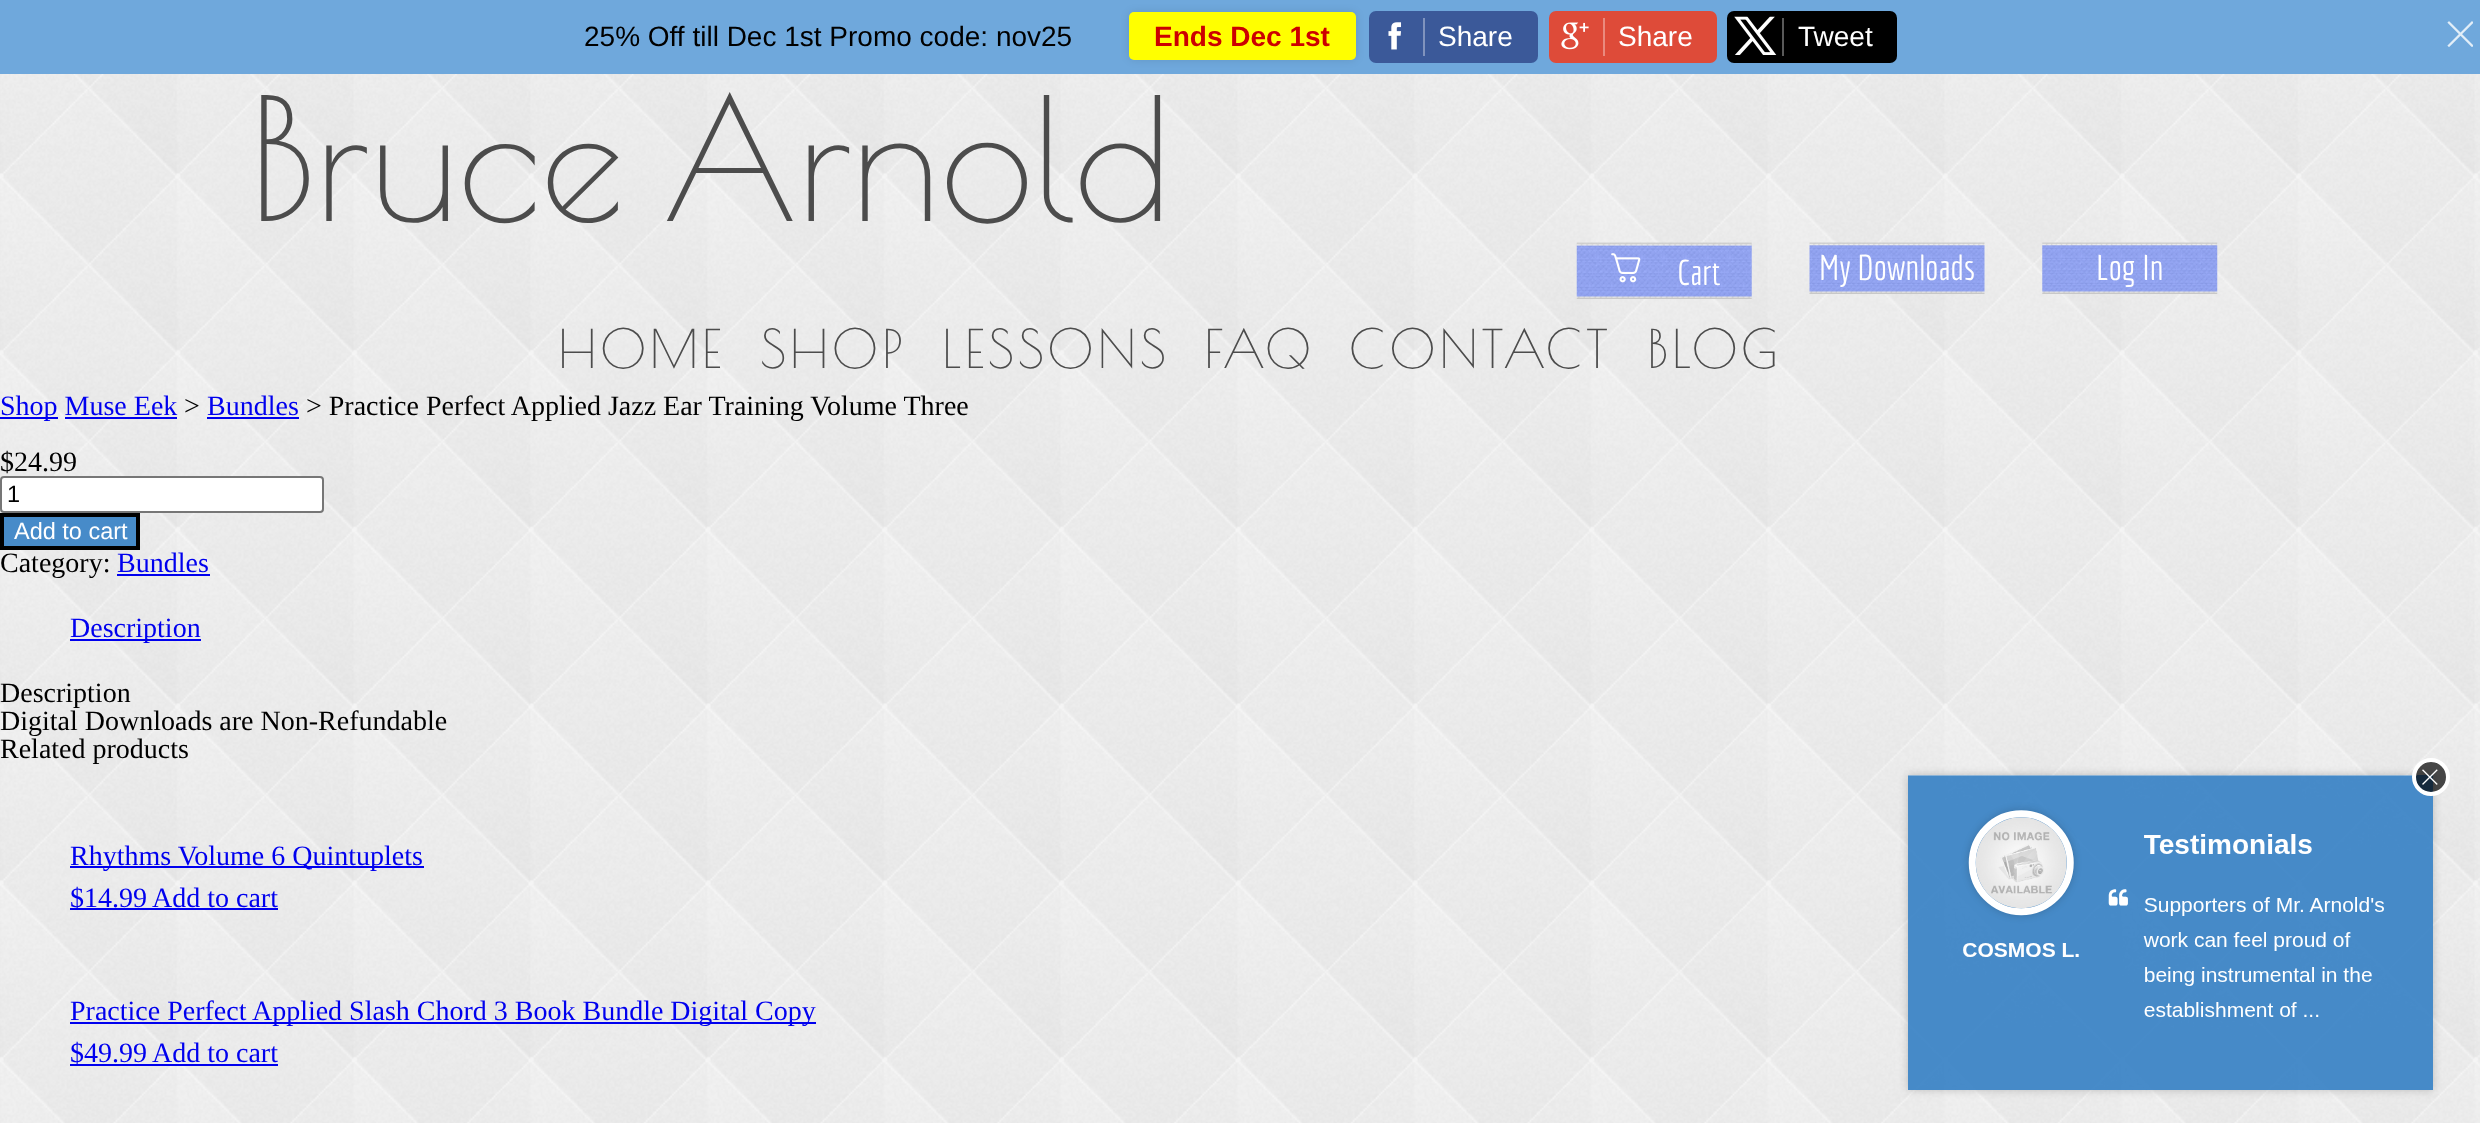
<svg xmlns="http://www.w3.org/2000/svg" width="2480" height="1123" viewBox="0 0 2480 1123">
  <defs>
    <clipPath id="clip1"><path d="M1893 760H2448V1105H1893ZM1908 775H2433V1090H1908Z" clip-rule="evenodd"/></clipPath>
  </defs>
  <rect width="100%" height="100%" fill="#fff"/>
  <image x="0" y="74" width="2480" height="1049" href="img/1.png"/>
  <path d="M0 0h2480v74H0z" fill="#6fa8dc"/>
  <rect x="1129" y="12" width="227" height="48" rx="5" fill="#0000001a" filter="blur(4.5px)"/>
  <rect x="1129" y="12" width="227" height="48" rx="5" fill="#ff0"/>
  <rect x="1369" y="11" width="169" height="52" rx="7" fill="#3b5999"/>
  <path d="M1423 18h2v38H1423z" fill="#8093bd"/>
  <image x="1388" y="22" width="14" height="28" href="img/2.png"/>
  <rect x="1549" y="11" width="168" height="52" rx="7" fill="#de4b39"/>
  <path d="M1603 18h2v38H1603z" fill="#ea8a7e"/>
  <image x="1561" y="22" width="28" height="28" href="img/3.png"/>
  <rect x="1727" y="11" width="170" height="52" rx="7" fill="#000"/>
  <path d="M1782 18h2v38H1782z" fill="#595959"/>
  <image x="1734" y="16" width="43" height="39" href="img/4.png"/>
  <image x="2447" y="21" width="26" height="26" href="img/5.png"/>
  <image x="1576" y="242" width="176" height="57" href="img/6.png"/>
  <image x="1611" y="253" width="30" height="30" href="img/7.png"/>
  <image x="1809" y="242" width="176" height="52" href="img/8.png"/>
  <image x="2042" y="242" width="176" height="52" href="img/9.png"/>
  <path d="M0 417h58v2H0z" fill="#00e"/>
  <path d="M207 417h92v2H207z" fill="#00e"/>
  <path d="M65 417h112v2H65z" fill="#00e"/>
  <rect x="1" y="477" width="322" height="35" rx="3" fill="#fff" stroke="#767676" stroke-width="2"/>
  <path d="M2 515h136v33H2z" fill="#478bc9" stroke="#000" stroke-width="4"/>
  <path d="M117 574h93v2H117z" fill="#00e"/>
  <path d="M70 639h131v2H70z" fill="#00e"/>
  <path d="M70 866h354v2H70z" fill="#00e"/>
  <path d="M70 908h208v2H70z" fill="#00e"/>
  <path d="M70 1022h746v2H70z" fill="#00e"/>
  <path d="M70 1064h208v2H70z" fill="#00e"/>
  <g clip-path="url(#clip1)">
    <path d="M1908 775h525v315H1908z" fill="#00000033" filter="blur(4.5px)"/>
  </g>
  <image x="1908" y="775" width="525" height="315" href="img/11.png"/>
  <circle cx="2431" cy="777" r="17" fill="#000000b3" stroke="#fff" stroke-width="4"/>
  <image x="2422" y="769" width="16" height="16" href="img/10.png"/>
  <text x="584" y="46" font-family="Liberation Sans" font-size="28" fill="#000">25% Off till Dec 1st Promo code: nov25</text>
  <text x="1154" y="46" font-family="Liberation Sans" font-size="28" font-weight="bold" fill="#c00">Ends Dec 1st</text>
  <g font-family="Liberation Sans" font-size="28" fill="#fff">
    <text x="1438" y="46">Share</text>
    <text x="1618" y="46">Share</text>
    <text x="1798" y="46">Tweet</text>
  </g>
  <text x="248" y="221" font-family="Poiret One" font-size="168" fill="#4c4c4c">Bruce Arnold</text>
  <g font-family="Economica" font-size="35" fill="#fff">
    <text x="1677" y="285">Cart</text>
    <text x="1819" y="280">My Downloads</text>
    <text x="2096" y="280">Log In</text>
  </g>
  <g font-family="Poiret One" font-size="52.5" letter-spacing="3.5" fill="#4c4c4c">
    <text x="558" y="368">HOME</text>
    <text x="760" y="368">SHOP</text>
    <text x="942" y="368">LESSONS</text>
    <text x="1204" y="368">FAQ</text>
    <text x="1349" y="368">CONTACT</text>
    <text x="1647" y="368">BLOG</text>
  </g>
  <text x="0" y="415" font-family="Liberation Serif" font-size="28" fill="#00e">Shop Muse Eek</text>
  <text x="184" y="415" font-family="Liberation Serif" font-size="28" fill="#000">&gt;</text>
  <text x="207" y="415" font-family="Liberation Serif" font-size="28" fill="#00e">Bundles</text>
  <g font-family="Liberation Serif" font-size="28" fill="#000">
    <text x="306" y="415">&gt; Practice Perfect Applied Jazz Ear Training Volume Three</text>
    <text x="0" y="471">$24.99</text>
  </g>
  <text x="7" y="502" font-family="Liberation Sans" font-size="23.5" fill="#000">1</text>
  <text x="14" y="539" font-family="Liberation Sans" font-size="23.5" fill="#fff">Add to cart</text>
  <text x="0" y="572" font-family="Liberation Serif" font-size="28" fill="#000">Category:</text>
  <g font-family="Liberation Serif" font-size="28" fill="#00e">
    <text x="117" y="572">Bundles</text>
    <text x="70" y="637">Description</text>
  </g>
  <g font-family="Liberation Serif" font-size="28" fill="#000">
    <text x="0" y="702">Description</text>
    <text x="0" y="730">Digital Downloads are Non-Refundable</text>
    <text x="0" y="758">Related products</text>
  </g>
  <g font-family="Liberation Serif" font-size="28" fill="#00e">
    <text x="70" y="865">Rhythms Volume 6 Quintuplets</text>
    <text x="70" y="907">$14.99</text>
    <text x="152" y="907">Add to cart</text>
    <text x="70" y="1020">Practice Perfect Applied Slash Chord 3 Book Bundle Digital Copy</text>
    <text x="70" y="1062">$49.99</text>
    <text x="152" y="1062">Add to cart</text>
  </g>
</svg>
